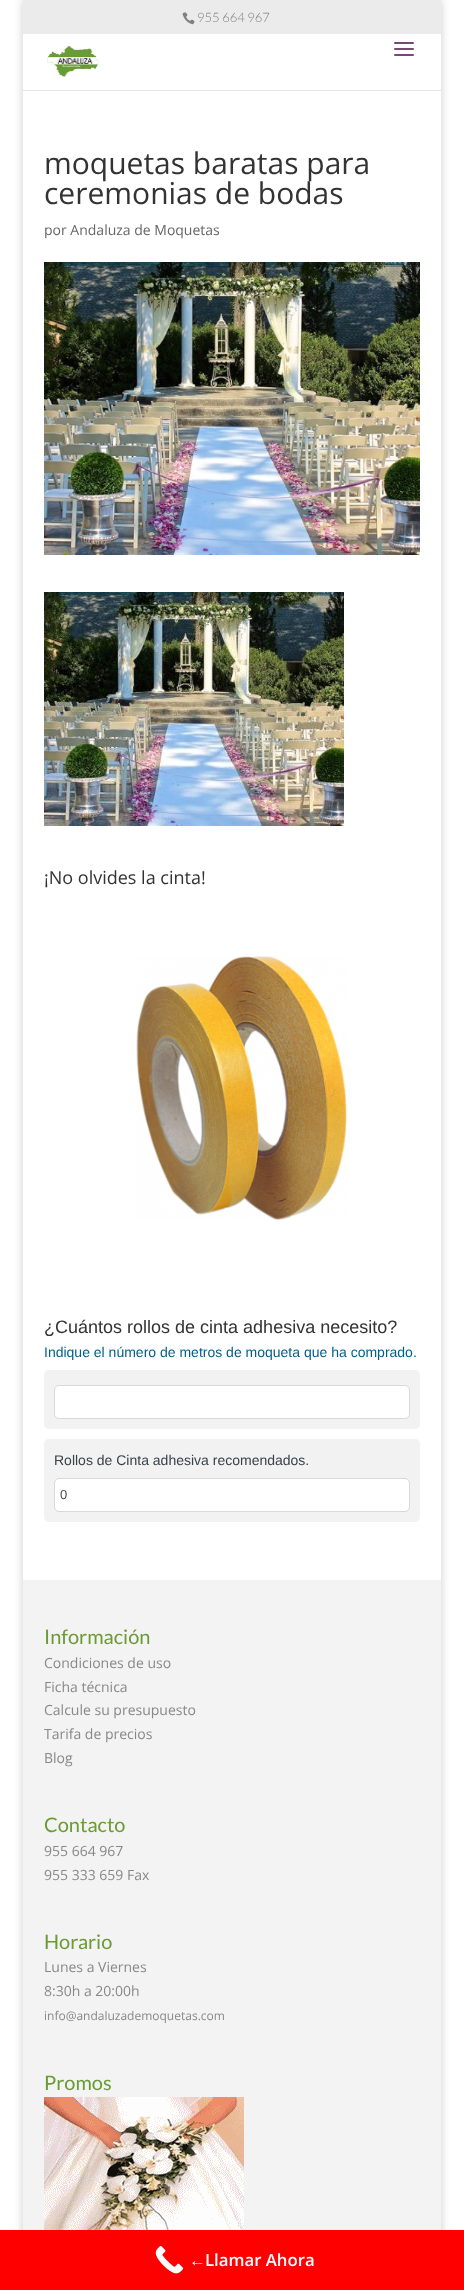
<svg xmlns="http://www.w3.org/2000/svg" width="464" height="2290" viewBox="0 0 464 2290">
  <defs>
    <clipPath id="clip1"><path d="M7 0H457V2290H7ZM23 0H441V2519H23Z" clip-rule="evenodd"/></clipPath>
  </defs>
  <rect width="100%" height="100%" fill="#fff"/>
  <g clip-path="url(#clip1)">
    <path d="M23 0h418v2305H23z" fill="#00000033" filter="blur(5px)"/>
  </g>
  <path d="M23 0h418v34H23z" fill="#ebebeb"/>
  <image x="182" y="12" width="13" height="13" href="img/1.png"/>
  <path d="M23 90h418v1H23z" fill="#e6e6e6"/>
  <image x="47" y="46" width="52" height="31" href="img/2.png"/>
  <image x="394" y="42" width="20" height="14" href="img/3.png"/>
  <image x="44" y="262" width="376" height="293" href="img/4.png"/>
  <image x="44" y="592" width="300" height="234" href="img/5.png"/>
  <image x="136" y="956" width="211" height="264" href="img/6.png"/>
  <rect x="44" y="1370" width="376" height="59" rx="5" fill="#f2f2f2"/>
  <rect x="54.5" y="1385.5" width="355" height="33" rx="4.5" fill="#fff" stroke="#d7d9da"/>
  <rect x="44" y="1439" width="376" height="83" rx="5" fill="#f2f2f2"/>
  <rect x="54.5" y="1478.5" width="355" height="33" rx="4.5" fill="#fff" stroke="#d7d9da"/>
  <path d="M23 1580h418v650H23z" fill="#f3f3f3"/>
  <image x="44" y="2097" width="200" height="133" href="img/7.png"/>
  <path d="M0 2230h464v60H0z" fill="#f00"/>
  <image x="155" y="2246" width="29" height="28" href="img/8.png"/>
  <text x="197" y="22" font-family="Lato" font-size="13" font-weight="300" fill="#808080">955 664 967</text>
  <g font-family="Open Sans" font-size="30" fill="#333">
    <text x="44" y="174">moquetas baratas para</text>
    <text x="44" y="204">ceremonias de bodas</text>
  </g>
  <text x="44" y="235" font-family="Open Sans" font-size="14" fill="#666">por Andaluza de Moquetas</text>
  <text x="44" y="884" font-family="Open Sans" font-size="18" fill="#333">¡No olvides la cinta!</text>
  <text x="44" y="1333" font-family="Liberation Sans" font-size="18" fill="#333">¿Cuántos rollos de cinta adhesiva necesito?</text>
  <text x="44" y="1357" font-family="Liberation Sans" font-size="14" fill="#005e8a">Indique el número de metros de moqueta que ha comprado.</text>
  <text x="54" y="1465" font-family="Liberation Sans" font-size="14" fill="#384248">Rollos de Cinta adhesiva recomendados.</text>
  <text x="60" y="1499" font-family="Liberation Sans" font-size="13" fill="#4e4e4e">0</text>
  <text x="44" y="1644" font-family="Lato" font-size="20" fill="#6a9b35">Información</text>
  <g font-family="Open Sans" font-size="14" fill="#888">
    <text x="44" y="1668">Condiciones de uso</text>
    <text x="44" y="1692">Ficha técnica</text>
    <text x="44" y="1715">Calcule su presupuesto</text>
    <text x="44" y="1739">Tarifa de precios</text>
    <text x="44" y="1763">Blog</text>
  </g>
  <text x="44" y="1832" font-family="Lato" font-size="20" fill="#6a9b35">Contacto</text>
  <g font-family="Open Sans" font-size="14" fill="#888">
    <text x="44" y="1856">955 664 967</text>
    <text x="44" y="1880">955 333 659 Fax</text>
  </g>
  <text x="44" y="1949" font-family="Lato" font-size="20" fill="#6a9b35">Horario</text>
  <g font-family="Open Sans" font-size="14" fill="#888">
    <text x="44" y="1972">Lunes a Viernes</text>
    <text x="44" y="1996">8:30h a 20:00h</text>
  </g>
  <text x="44" y="2020" font-family="Open Sans" font-size="12" fill="#888">info@andaluzademoquetas.com</text>
  <text x="44" y="2090" font-family="Lato" font-size="20" fill="#6a9b35">Promos</text>
  <text x="189" y="2266" font-family="Liberation Sans" font-size="16.75" font-weight="bold" fill="#fff">←</text>
  <text x="205" y="2266" font-family="Open Sans" font-size="16.75" font-weight="600" fill="#fff">Llamar Ahora</text>
</svg>
